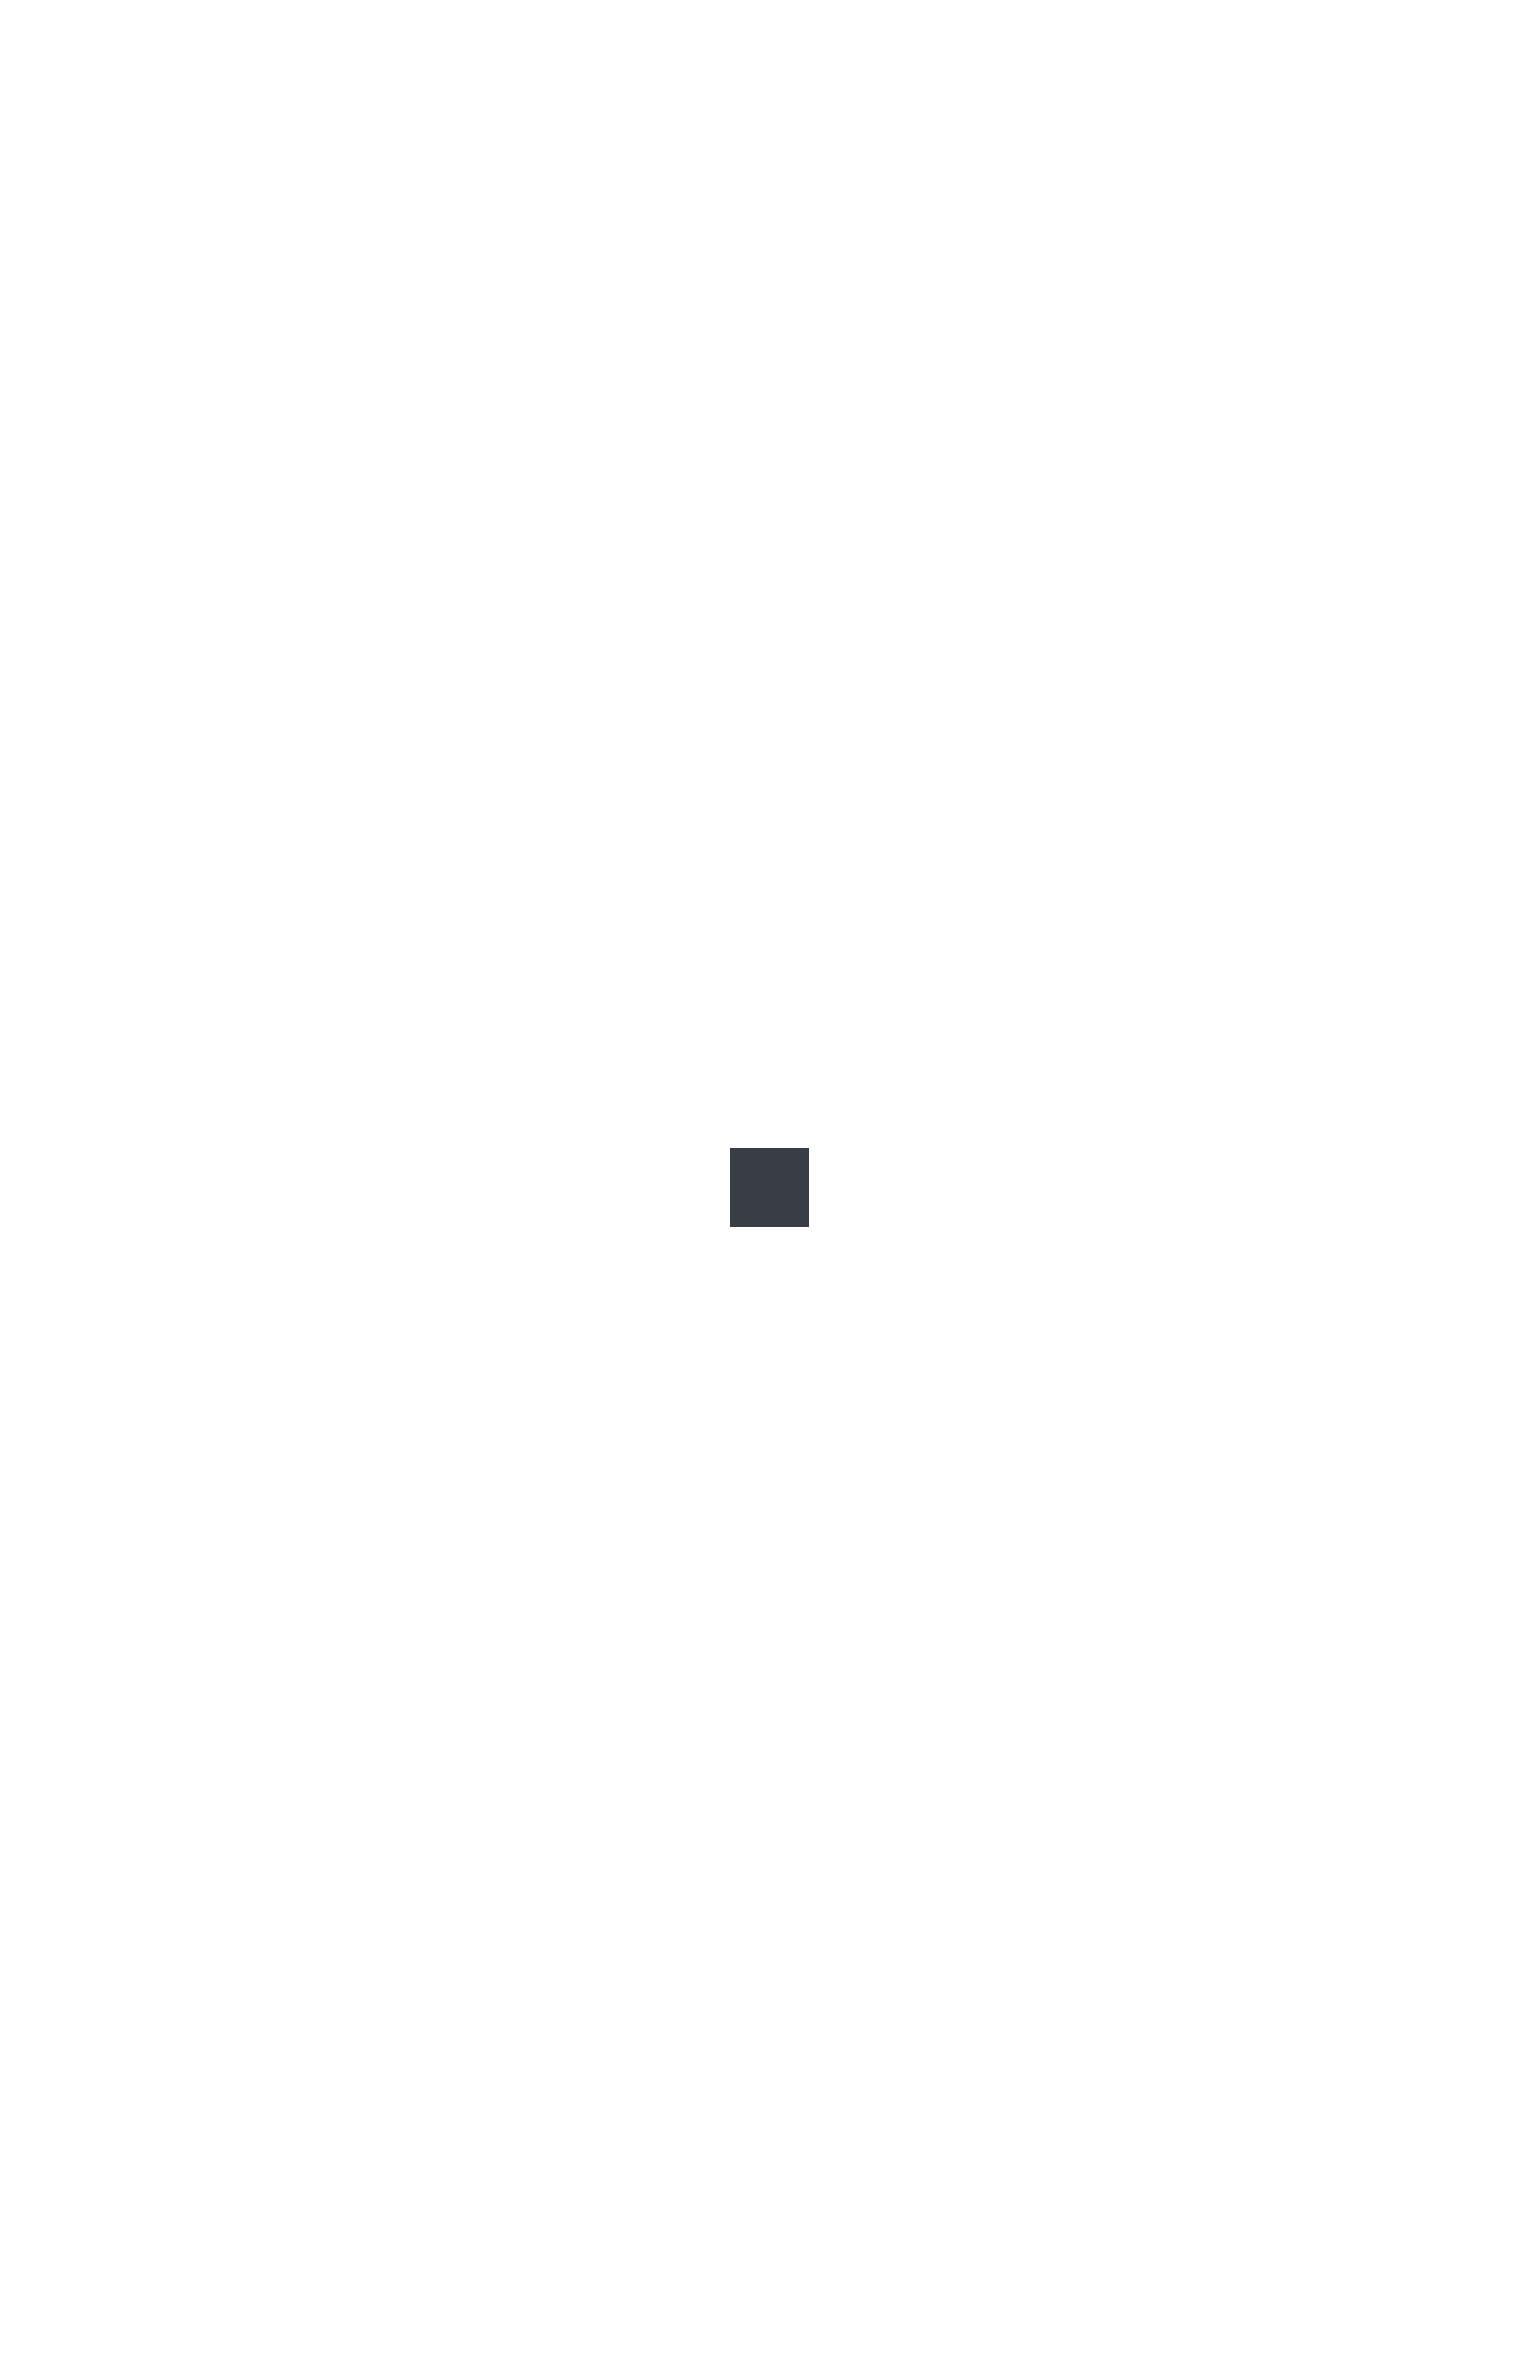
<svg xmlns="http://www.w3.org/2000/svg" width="1535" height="2373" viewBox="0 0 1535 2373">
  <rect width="100%" height="100%" fill="#fff"/>
  <path d="M730 1148h79v79H730z" fill="#393e46"/>
</svg>
